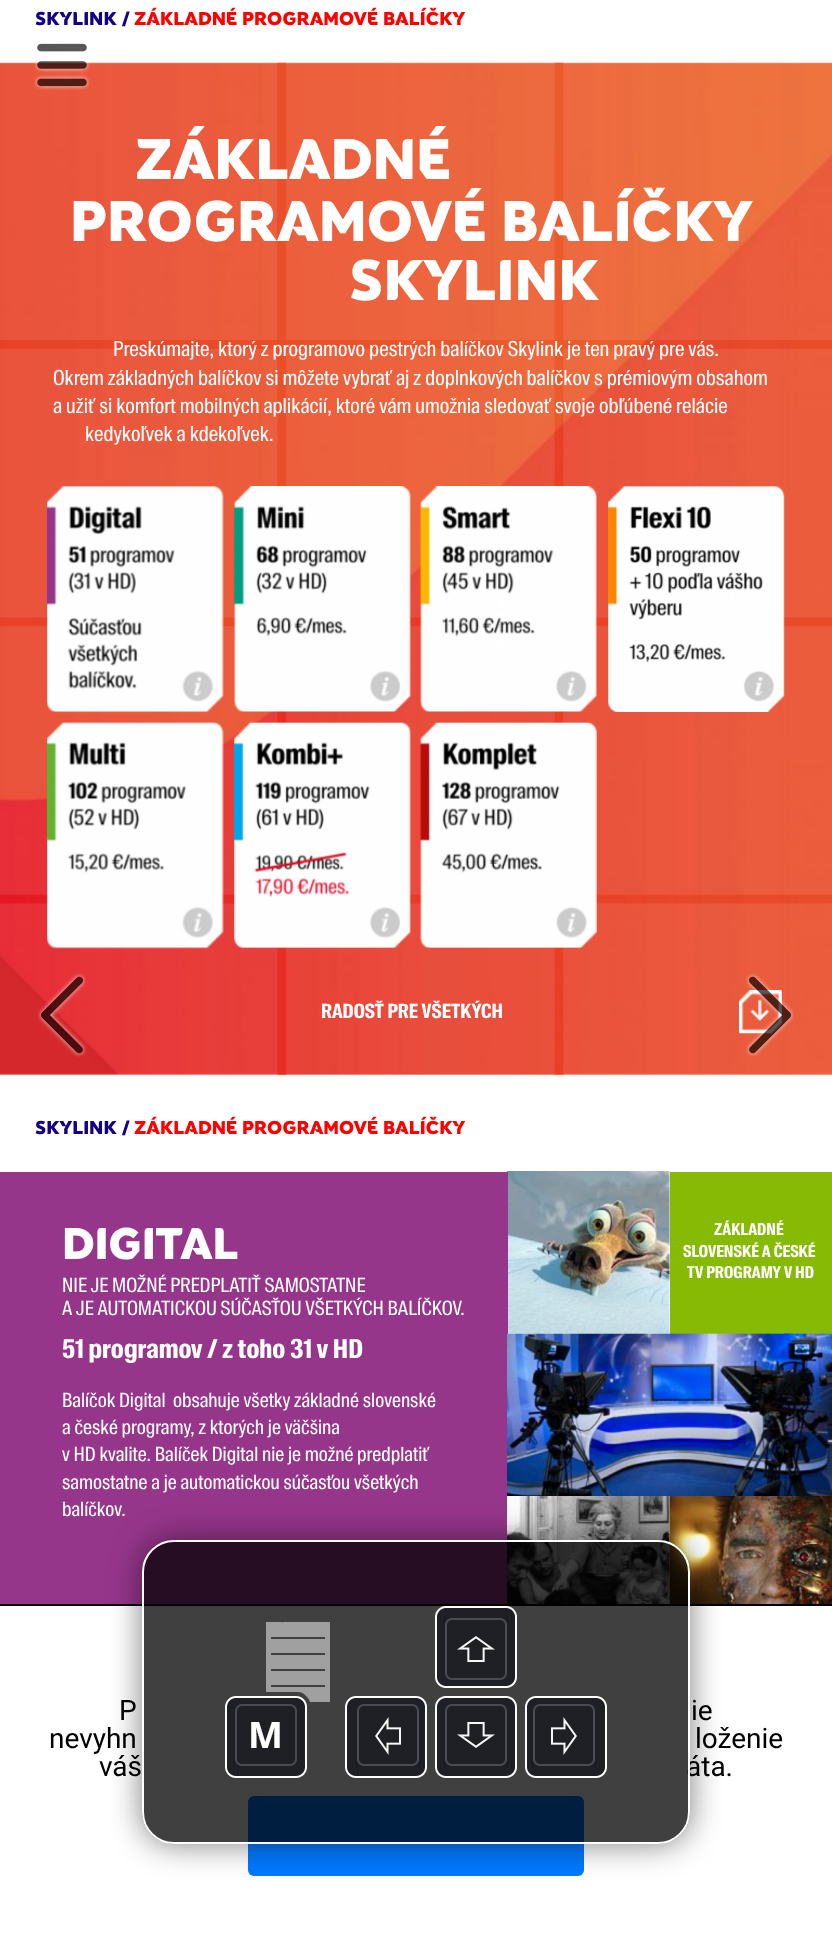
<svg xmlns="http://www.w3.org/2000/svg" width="832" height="1940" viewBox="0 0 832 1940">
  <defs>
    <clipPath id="clip1"><path d="M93 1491H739V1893H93ZM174 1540H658C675.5 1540 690 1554.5 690 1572V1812C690 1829.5 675.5 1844 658 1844H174C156.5 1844 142 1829.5 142 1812V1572C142 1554.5 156.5 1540 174 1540Z" clip-rule="evenodd"/></clipPath>
  </defs>
  <rect width="100%" height="100%" fill="#fff"/>
  <image x="0" y="62" width="287" height="288" href="img/1.png"/>
  <image x="277" y="62" width="287" height="288" href="img/2.png"/>
  <image x="554" y="62" width="278" height="288" href="img/3.png"/>
  <image x="0" y="340" width="287" height="287" href="img/4.png"/>
  <image x="277" y="340" width="287" height="287" href="img/5.png"/>
  <image x="554" y="340" width="278" height="287" href="img/6.png"/>
  <image x="0" y="617" width="287" height="287" href="img/7.png"/>
  <image x="277" y="617" width="287" height="287" href="img/8.png"/>
  <image x="554" y="617" width="278" height="287" href="img/9.png"/>
  <image x="0" y="894" width="287" height="181" href="img/10.png"/>
  <image x="277" y="894" width="287" height="181" href="img/11.png"/>
  <image x="554" y="894" width="278" height="181" href="img/12.png"/>
  <image x="47" y="486" width="177" height="227" href="img/13.png"/>
  <image x="234" y="486" width="177" height="226" href="img/14.png"/>
  <image x="420" y="486" width="177" height="226" href="img/15.png"/>
  <image x="608" y="486" width="177" height="226" href="img/16.png"/>
  <image x="47" y="722" width="177" height="227" href="img/17.png"/>
  <image x="234" y="722" width="177" height="226" href="img/18.png"/>
  <image x="420" y="722" width="177" height="226" href="img/19.png"/>
  <image x="739" y="990" width="43" height="44" href="img/20.png"/>
  <image x="750" y="999" width="20" height="22" href="img/21.png"/>
  <image x="507" y="1171" width="163" height="163" href="img/22.png"/>
  <path d="M0 1172h508v432H0z" fill="#96368b"/>
  <path d="M670 1172h162v162H670z" fill="#86ba04"/>
  <image x="507" y="1333" width="286" height="163" href="img/23.png"/>
  <image x="784" y="1333" width="48" height="163" href="img/24.png"/>
  <image x="507" y="1496" width="163" height="108" href="img/25.png"/>
  <image x="669" y="1496" width="163" height="108" href="img/26.png"/>
  <image x="34" y="43" width="56" height="47" href="img/27.png"/>
  <image x="37" y="973" width="50" height="84" href="img/28.png"/>
  <image x="745" y="973" width="50" height="84" href="img/29.png"/>
  <path d="M0 1604h832v2H0z" fill="#000"/>
  <rect x="248" y="1796" width="336" height="80" rx="6" fill="#007aff"/>
  <g clip-path="url(#clip1)">
    <rect x="142" y="1540" width="548" height="304" rx="32" fill="#00000080" filter="blur(16px)"/>
  </g>
  <text x="35" y="25" font-family="'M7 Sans'" font-size="18.4" fill="#140087">SKYLINK /</text>
  <text x="134" y="25" font-family="'M7 Sans'" font-size="18.4" fill="#f00">ZÁKLADNÉ PROGRAMOVÉ BALÍČKY</text>
  <g font-family="'M7 Sans'" font-size="56.25" fill="#fff">
    <text x="135" y="179">ZÁKLADNÉ</text>
    <text x="70" y="241">PROGRAMOVÉ BALÍČKY</text>
    <text x="349" y="300">SKYLINK</text>
  </g>
  <g font-family="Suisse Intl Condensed" font-size="20.6" fill="#fff">
    <text x="113" y="356">Preskúmajte, ktorý z programovo pestrých balíčkov Skylink je ten pravý pre vás.</text>
    <text x="53" y="385">Okrem základných balíčkov si môžete vybrať aj z doplnkových balíčkov s prémiovým obsahom</text>
    <text x="53" y="413">a užiť si komfort mobilných aplikácií, ktoré vám umožnia sledovať svoje obľúbené relácie</text>
    <text x="85" y="441">kedykoľvek a kdekoľvek.</text>
  </g>
  <text x="321" y="1018" font-family="Suisse Intl Condensed" font-size="19.5" font-weight="bold" fill="#fff">RADOSŤ PRE VŠETKÝCH</text>
  <text x="35" y="1134" font-family="'M7 Sans'" font-size="18.4" fill="#140087">SKYLINK /</text>
  <text x="134" y="1134" font-family="'M7 Sans'" font-size="18.4" fill="#f00">ZÁKLADNÉ PROGRAMOVÉ BALÍČKY</text>
  <g font-family="Suisse Intl Condensed" font-size="16.25" font-weight="bold" fill="#fff">
    <text x="714" y="1235">ZÁKLADNÉ</text>
    <text x="683" y="1257">SLOVENSKÉ A ČESKÉ</text>
    <text x="687" y="1278">TV PROGRAMY V HD</text>
  </g>
  <text x="62" y="1259" font-family="'M7 Sans'" font-size="43.5" fill="#fff">DIGITAL</text>
  <g font-family="Suisse Intl Condensed" font-size="19.5" fill="#fff">
    <text x="62" y="1292">NIE JE MOŽNÉ PREDPLATIŤ SAMOSTATNE</text>
    <text x="62" y="1315">A JE AUTOMATICKOU SÚČASŤOU VŠETKÝCH BALÍČKOV.</text>
  </g>
  <text x="62" y="1358" font-family="Suisse Intl Condensed" font-size="26" font-weight="bold" fill="#fff">51 programov / z toho 31 v HD</text>
  <g font-family="Suisse Intl Condensed" font-size="19.5" fill="#fff">
    <text x="62" y="1407" xml:space="preserve">Balíčok Digital  obsahuje všetky základné slovenské</text>
    <text x="62" y="1434">a české programy, z ktorých je väčšina</text>
    <text x="62" y="1461">v HD kvalite. Balíček Digital nie je možné predplatiť</text>
    <text x="62" y="1489">samostatne a je automatickou súčasťou všetkých</text>
    <text x="62" y="1516">balíčkov.</text>
  </g>
  <g font-family="Roboto" font-size="28" fill="#000">
    <text x="119" y="1720">P</text>
    <text x="691" y="1720">ie</text>
    <text x="49" y="1748">nevyhn</text>
    <text x="695" y="1748">loženie</text>
    <text x="99" y="1776">váš</text>
    <text x="686" y="1776">áta.</text>
  </g>
  <rect x="142" y="1540" width="548" height="304" rx="32" fill="#000000bf"/>
  <image x="225" y="1606" width="382" height="172" href="img/30.png"/>
  <rect x="143" y="1541" width="546" height="302" rx="31" fill="none" stroke="#fff" stroke-width="2"/>
</svg>
